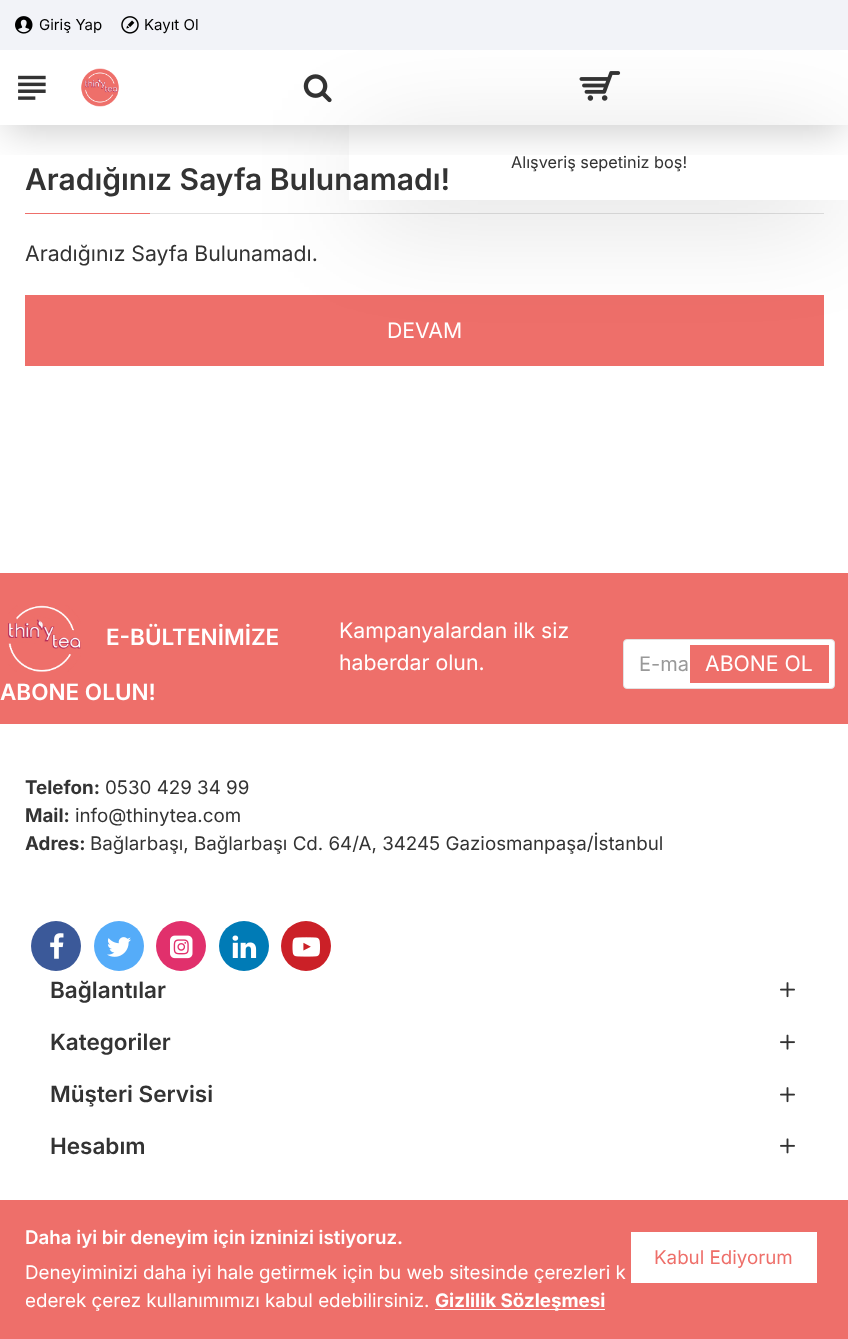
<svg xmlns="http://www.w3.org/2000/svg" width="848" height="1339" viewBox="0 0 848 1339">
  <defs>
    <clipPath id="clip1"><path d="M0 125h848v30H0z"/></clipPath>
    <clipPath id="clip2"><path d="M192 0H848V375H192ZM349 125H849V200H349Z" clip-rule="evenodd"/></clipPath>
  </defs>
  <rect width="100%" height="100%" fill="#fff"/>
  <g clip-path="url(#clip1)">
    <path d="M6 69h837v62H6z" fill="#00000033" filter="blur(19px)"/>
  </g>
  <image x="303" y="74" width="29" height="29" href="img/5.png"/>
  <path d="M150 213h674v1H150z" fill="#e2e2e2"/>
  <path d="M25 295h799v71H25z" fill="#ee6f6a"/>
  <g clip-path="url(#clip2)">
    <path d="M361 156h475v50H361z" fill="#00000033" filter="blur(56px)"/>
  </g>
  <path d="M0 0h848v50H0z" fill="#f2f3f8"/>
  <image x="15" y="16" width="18" height="18" href="img/1.png"/>
  <image x="121" y="16" width="18" height="18" href="img/2.png"/>
  <image x="81" y="68" width="38" height="39" href="img/3.png"/>
  <image x="18" y="75" width="28" height="25" href="img/4.png"/>
  <image x="579" y="71" width="42" height="30" href="img/6.png"/>
  <path d="M25 213h125v1H25z" fill="#ee6f6a"/>
  <path d="M0 573h848v151H0z" fill="#ee6f6a"/>
  <image x="8" y="605" width="73" height="67" href="img/7.png"/>
  <rect x="623.5" y="639.5" width="211" height="49" rx="3.5" fill="#fff" stroke="#e2e2e2"/>
  <path d="M690 645h139v38H690z" fill="#ee6f6a"/>
  <circle cx="56" cy="946" r="25" fill="#3b5999"/>
  <image x="50" y="933" width="14" height="26" href="img/8.png"/>
  <circle cx="119" cy="946" r="25" fill="#55acf9"/>
  <image x="107" y="937" width="24" height="20" href="img/9.png"/>
  <circle cx="181" cy="946" r="25" fill="#e1306c"/>
  <image x="170" y="935" width="23" height="24" href="img/10.png"/>
  <circle cx="244" cy="946" r="25" fill="#007bb6"/>
  <image x="232" y="935" width="25" height="23" href="img/11.png"/>
  <circle cx="306" cy="946" r="25" fill="#cb2027"/>
  <image x="292" y="937" width="28" height="20" href="img/12.png"/>
  <image x="780" y="982" width="15" height="16" href="img/13.png"/>
  <image x="780" y="1034" width="15" height="16" href="img/14.png"/>
  <image x="780" y="1087" width="15" height="16" href="img/13.png"/>
  <image x="780" y="1138" width="15" height="16" href="img/15.png"/>
  <path d="M0 1200h848v139H0z" fill="#ee6f6a"/>
  <path d="M435 1309h170v1H435z" fill="#fff"/>
  <path d="M631 1232h186v51H631z" fill="#fff"/>
  <g font-family="Inter" font-size="15" fill="#000">
    <text x="39" y="30">Giriş Yap</text>
    <text x="144" y="30">Kayıt Ol</text>
  </g>
  <text x="511" y="168" font-family="Inter" font-size="16.25" fill="#333">Alışveriş sepetiniz boş!</text>
  <text x="25" y="190" font-family="Inter" font-size="30" font-weight="600" fill="#333">Aradığınız Sayfa Bulunamadı!</text>
  <text x="25" y="261" font-family="Inter" font-size="21.25" fill="#333">Aradığınız Sayfa Bulunamadı.</text>
  <text x="387" y="338" font-family="Inter" font-size="21.25" fill="#fff">DEVAM</text>
  <g font-family="Inter" font-size="22.5" font-weight="600" fill="#fff">
    <text x="106" y="645">E-BÜLTENİMİZE</text>
    <text x="0" y="700">ABONE OLUN!</text>
  </g>
  <g font-family="Inter" font-size="21.25" fill="#fff">
    <text x="339" y="638">Kampanyalardan ilk siz</text>
    <text x="339" y="670">haberdar olun.</text>
  </g>
  <text x="639" y="671" font-family="Inter" font-size="20" fill="#999">E-ma</text>
  <text x="705" y="671" font-family="Inter" font-size="21.25" fill="#fff">ABONE OL</text>
  <text x="25" y="794" font-family="Inter" font-size="18.75" font-weight="bold" fill="#333">Telefon:</text>
  <text x="105" y="794" font-family="Inter" font-size="18.75" fill="#333">0530 429 34 99</text>
  <text x="25" y="822" font-family="Inter" font-size="18.75" font-weight="bold" fill="#333">Mail:</text>
  <text x="75" y="822" font-family="Inter" font-size="18.75" fill="#333">info@thinytea.com</text>
  <text x="25" y="850" font-family="Inter" font-size="18.75" font-weight="bold" fill="#333">Adres:</text>
  <text x="90" y="850" font-family="Inter" font-size="18.75" fill="#333">Bağlarbaşı, Bağlarbaşı Cd. 64/A, 34245 Gaziosmanpaşa/İstanbul</text>
  <g font-family="Inter" font-size="22.5" font-weight="600" fill="#333">
    <text x="50" y="998">Bağlantılar</text>
    <text x="50" y="1050">Kategoriler</text>
    <text x="50" y="1102">Müşteri Servisi</text>
    <text x="50" y="1154">Hesabım</text>
  </g>
  <text x="25" y="1244" font-family="Inter" font-size="18.75" font-weight="600" fill="#fff">Daha iyi bir deneyim için izninizi istiyoruz.</text>
  <g font-family="Inter" font-size="18.75" fill="#fff">
    <text x="25" y="1279">Deneyiminizi daha iyi hale getirmek için bu web sitesinde çerezleri k</text>
    <text x="25" y="1307">ederek çerez kullanımımızı kabul edebilirsiniz.</text>
  </g>
  <text x="435" y="1307" font-family="Inter" font-size="18.75" font-weight="bold" fill="#fff">Gizlilik Sözleşmesi</text>
  <text x="654" y="1264" font-family="Inter" font-size="18.75" fill="#ee6f6a">Kabul Ediyorum</text>
</svg>
